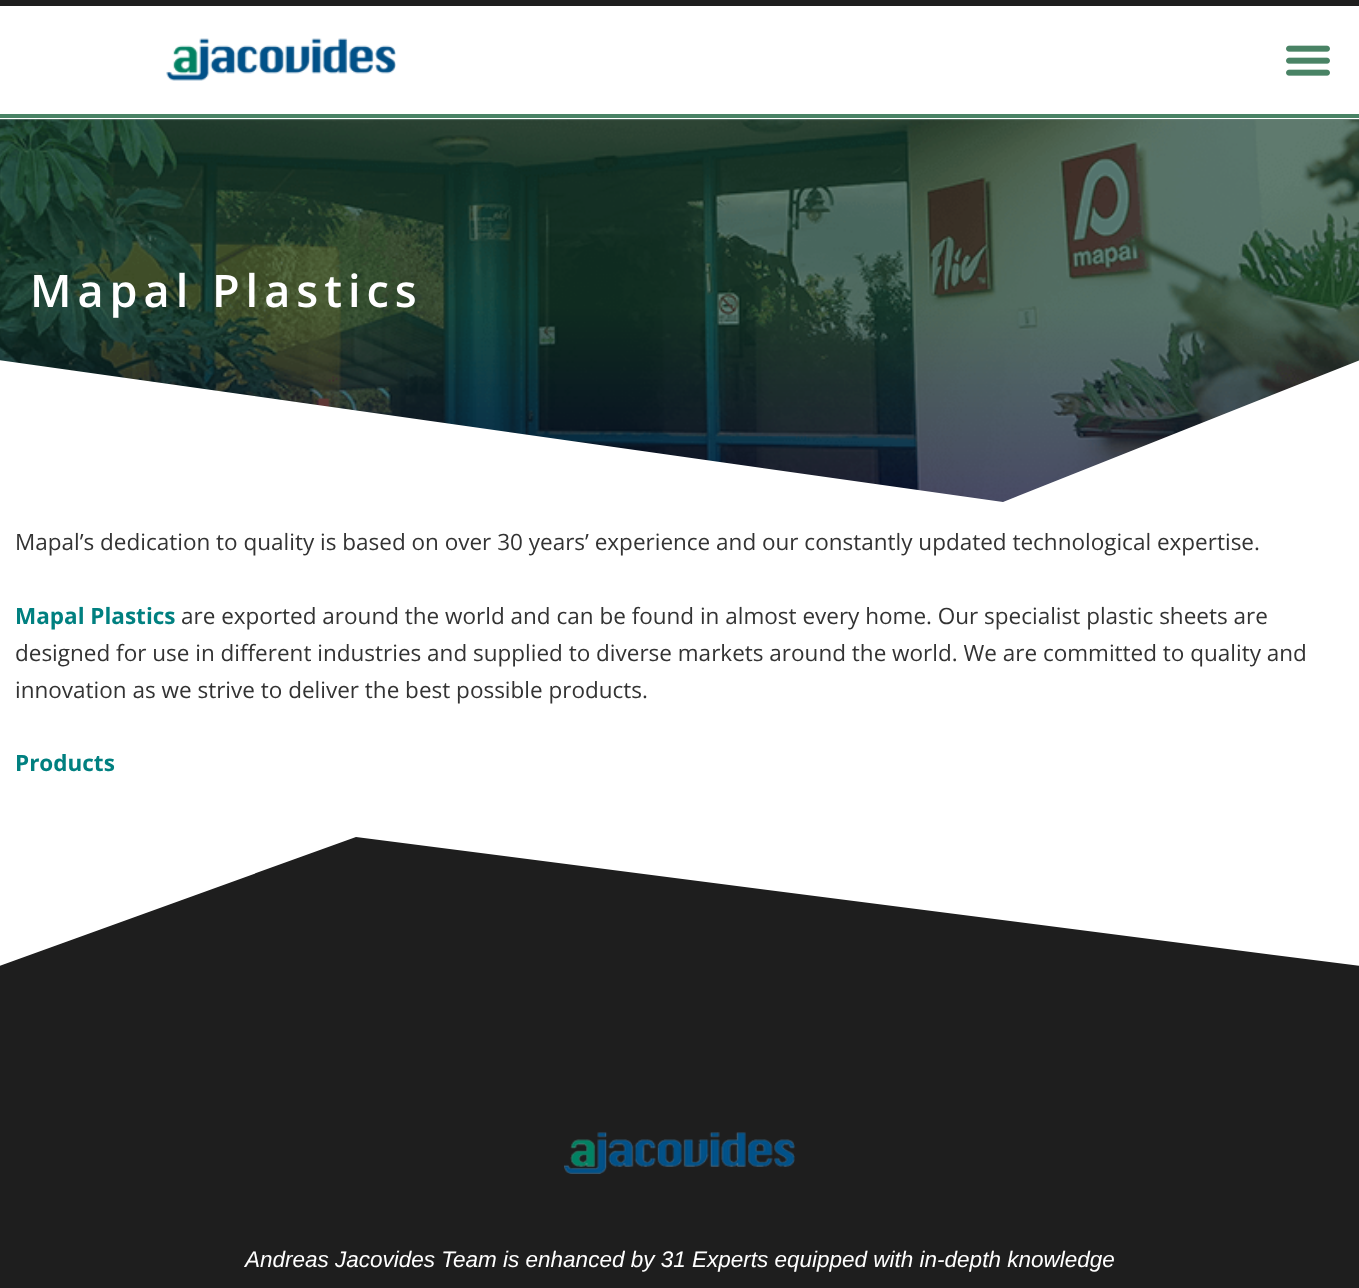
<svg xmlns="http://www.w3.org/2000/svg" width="1359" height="1288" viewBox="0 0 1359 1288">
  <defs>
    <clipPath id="clip1"><path d="M0 831h1359v135H0z"/></clipPath>
  </defs>
  <rect width="100%" height="100%" fill="#fff"/>
  <path d="M0 0h1359v6H0z" fill="#1e1e1e"/>
  <path d="M0 114h1359v4H0z" fill="#498365"/>
  <image x="166" y="38" width="230" height="43" href="img/1.png"/>
  <image x="1286" y="45" width="44" height="31" href="img/2.png"/>
  <image x="0" y="118" width="1359" height="384" href="img/3.png"/>
  <path d="M1003 502L-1 360V510H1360V360Z" fill="#fff"/>
  <path d="M0 837h1359v451H0z" fill="#1e1e1e"/>
  <g clip-path="url(#clip1)">
    <path d="M356 837L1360 966V830H-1V966Z" fill="#fff"/>
  </g>
  <image x="564" y="1132" width="231" height="42" href="img/4.png"/>
  <text x="30" y="307" font-family="Open Sans" font-size="45" font-weight="600" letter-spacing="6" fill="#fff">Mapal Plastics</text>
  <text x="15" y="550" font-family="Open Sans" font-size="22.5" fill="#333">Mapal’s dedication to quality is based on over 30 years’ experience and our constantly updated technological expertise.</text>
  <text x="15" y="624" font-family="Open Sans" font-size="22.5" font-weight="bold" fill="#008080">Mapal Plastics</text>
  <g font-family="Open Sans" font-size="22.5" fill="#333">
    <text x="181" y="624">are exported around the world and can be found in almost every home. Our specialist plastic sheets are</text>
    <text x="15" y="661">designed for use in different industries and supplied to diverse markets around the world. We are committed to quality and</text>
    <text x="15" y="698">innovation as we strive to deliver the best possible products.</text>
  </g>
  <text x="15" y="771" font-family="Open Sans" font-size="22.5" font-weight="bold" fill="#008080">Products</text>
  <text x="245" y="1267" font-family="Liberation Sans" font-size="22.5" font-style="italic" fill="#fff">Andreas Jacovides Team is enhanced by 31 Experts equipped with in-depth knowledge</text>
</svg>
